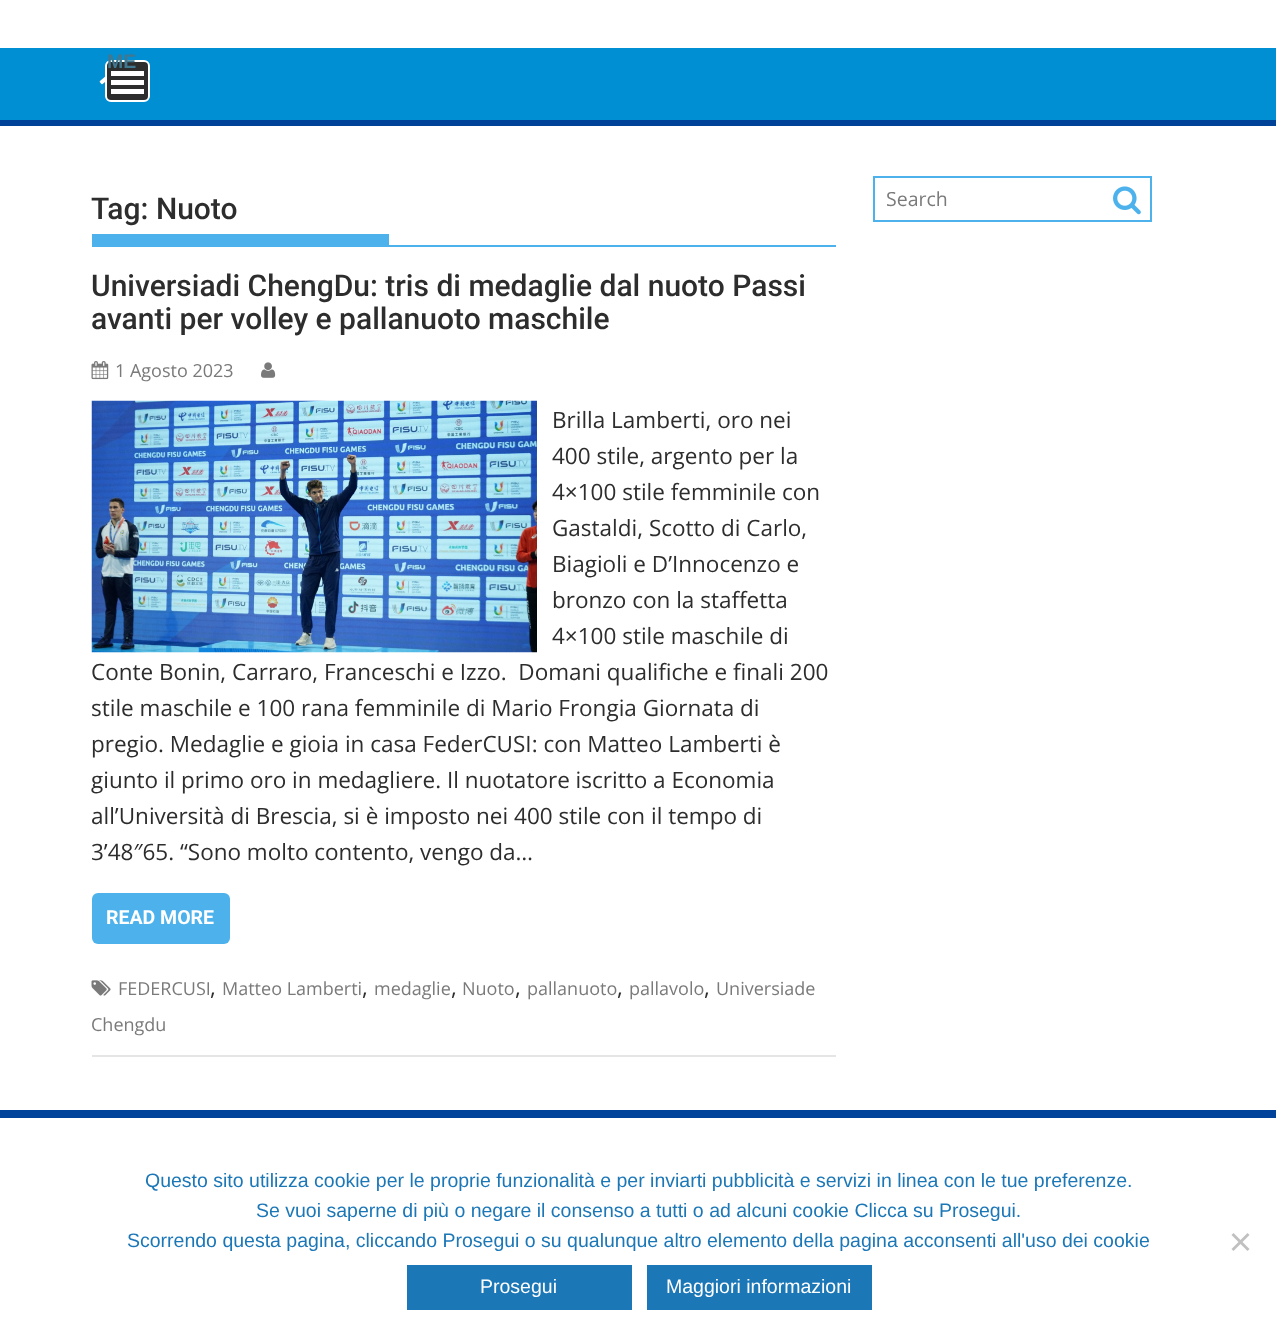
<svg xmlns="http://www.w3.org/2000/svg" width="1276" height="1339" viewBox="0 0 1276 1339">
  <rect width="100%" height="100%" fill="#fff"/>
  <path d="M0 48h1276v72H0z" fill="#008fd3"/>
  <path d="M0 120h1276v6H0z" fill="#004297"/>
  <image x="99" y="76" width="7" height="21" href="img/1.png"/>
  <rect x="106" y="61" width="43" height="40" rx="5" fill="#2d2d2d" stroke="#fff" stroke-width="2"/>
  <path d="M111 89h33v5H111z" fill="#fff"/>
  <path d="M111 80h33v5H111z" fill="#fff"/>
  <path d="M111 71h33v5H111z" fill="#fff"/>
  <path d="M92 245h744v2H92z" fill="#4db2ec"/>
  <path d="M92 234h297v11H92z" fill="#4db2ec"/>
  <path d="M92 1055h744v2H92z" fill="#e5e5e5"/>
  <image x="91" y="361" width="18" height="19" href="img/2.png"/>
  <image x="261" y="362" width="15" height="16" href="img/3.png"/>
  <image x="91" y="400" width="446" height="253" href="img/4.png"/>
  <rect x="92" y="893" width="138" height="51" rx="6" fill="#4db2ec"/>
  <image x="91" y="980" width="20" height="16" href="img/5.png"/>
  <path d="M874 177h277v44H874z" fill="none" stroke="#4db2ec" stroke-width="2"/>
  <image x="1113" y="186" width="28" height="29" href="img/6.png"/>
  <path d="M0 1110h1276v8H0z" fill="#01439a"/>
  <path d="M1247.5 1233L1249.5 1235L1233.5 1251L1231.5 1249Z" fill="#c0c0c0"/>
  <path d="M1231.5 1235L1233.5 1233L1249.5 1249L1247.5 1251Z" fill="#c0c0c0"/>
  <path d="M407 1265h225v45H407z" fill="#1c77b7"/>
  <path d="M647 1265h225v45H647z" fill="#1c77b7"/>
  <text x="107" y="68" font-family="Liberation Sans" font-size="19.5" font-weight="bold" fill="#407892">ME</text>
  <g font-family="Roboto" font-size="30" font-weight="500" fill="#2d2d2d">
    <text x="91" y="219">Tag: Nuoto</text>
    <text x="91" y="296">Universiadi ChengDu: tris di medaglie dal nuoto Passi</text>
    <text x="91" y="329">avanti per volley e pallanuoto maschile</text>
  </g>
  <text x="115" y="377" font-family="Open Sans" font-size="18" fill="#7a7a7a">1 Agosto 2023</text>
  <g font-family="Open Sans" font-size="22.5" fill="#2d2d2d">
    <text x="552" y="428">Brilla Lamberti, oro nei</text>
    <text x="552" y="464">400 stile, argento per la</text>
    <text x="552" y="500">4×100 stile femminile con</text>
    <text x="552" y="536">Gastaldi, Scotto di Carlo,</text>
    <text x="552" y="572">Biagioli e D’Innocenzo e</text>
    <text x="552" y="608">bronzo con la staffetta</text>
    <text x="552" y="644">4×100 stile maschile di</text>
    <text x="91" y="680" xml:space="preserve">Conte Bonin, Carraro, Franceschi e Izzo.  Domani qualifiche e finali 200</text>
    <text x="91" y="716">stile maschile e 100 rana femminile di Mario Frongia Giornata di</text>
    <text x="91" y="752">pregio. Medaglie e gioia in casa FederCUSI: con Matteo Lamberti è</text>
    <text x="91" y="788">giunto il primo oro in medagliere. Il nuotatore iscritto a Economia</text>
    <text x="91" y="824">all’Università di Brescia, si è imposto nei 400 stile con il tempo di</text>
    <text x="91" y="860">3’48″65. “Sono molto contento, vengo da…</text>
  </g>
  <text x="106" y="924" font-family="Roboto" font-size="19.5" font-weight="bold" fill="#fff">READ MORE</text>
  <text x="118" y="995" font-family="Open Sans" font-size="18" fill="#7a7a7a">FEDERCUSI</text>
  <text x="210" y="995" font-family="Open Sans" font-size="22.5" fill="#2d2d2d">,</text>
  <text x="222" y="995" font-family="Open Sans" font-size="18" fill="#7a7a7a">Matteo Lamberti</text>
  <text x="362" y="995" font-family="Open Sans" font-size="22.5" fill="#2d2d2d">,</text>
  <text x="374" y="995" font-family="Open Sans" font-size="18" fill="#7a7a7a">medaglie</text>
  <text x="451" y="995" font-family="Open Sans" font-size="22.5" fill="#2d2d2d">,</text>
  <text x="462" y="995" font-family="Open Sans" font-size="18" fill="#7a7a7a">Nuoto</text>
  <text x="515" y="995" font-family="Open Sans" font-size="22.5" fill="#2d2d2d">,</text>
  <text x="527" y="995" font-family="Open Sans" font-size="18" fill="#7a7a7a">pallanuoto</text>
  <text x="617" y="995" font-family="Open Sans" font-size="22.5" fill="#2d2d2d">,</text>
  <text x="629" y="995" font-family="Open Sans" font-size="18" fill="#7a7a7a">pallavolo</text>
  <text x="704" y="995" font-family="Open Sans" font-size="22.5" fill="#2d2d2d">,</text>
  <g font-family="Open Sans" font-size="18" fill="#7a7a7a">
    <text x="716" y="995">Universiade</text>
    <text x="91" y="1031">Chengdu</text>
  </g>
  <text x="886" y="206" font-family="Open Sans" font-size="19.5" fill="#7a7a7a">Search</text>
  <g font-family="Liberation Sans" font-size="19.5" fill="#1c77b7">
    <text x="145" y="1187">Questo sito utilizza cookie per le proprie funzionalità e per inviarti pubblicità e servizi in linea con le tue preferenze.</text>
    <text x="256" y="1217">Se vuoi saperne di più o negare il consenso a tutti o ad alcuni cookie Clicca su Prosegui.</text>
    <text x="127" y="1247">Scorrendo questa pagina, cliccando Prosegui o su qualunque altro elemento della pagina acconsenti all'uso dei cookie</text>
  </g>
  <g font-family="Liberation Sans" font-size="19.5" fill="#fff">
    <text x="480" y="1293">Prosegui</text>
    <text x="666" y="1293">Maggiori informazioni</text>
  </g>
</svg>
